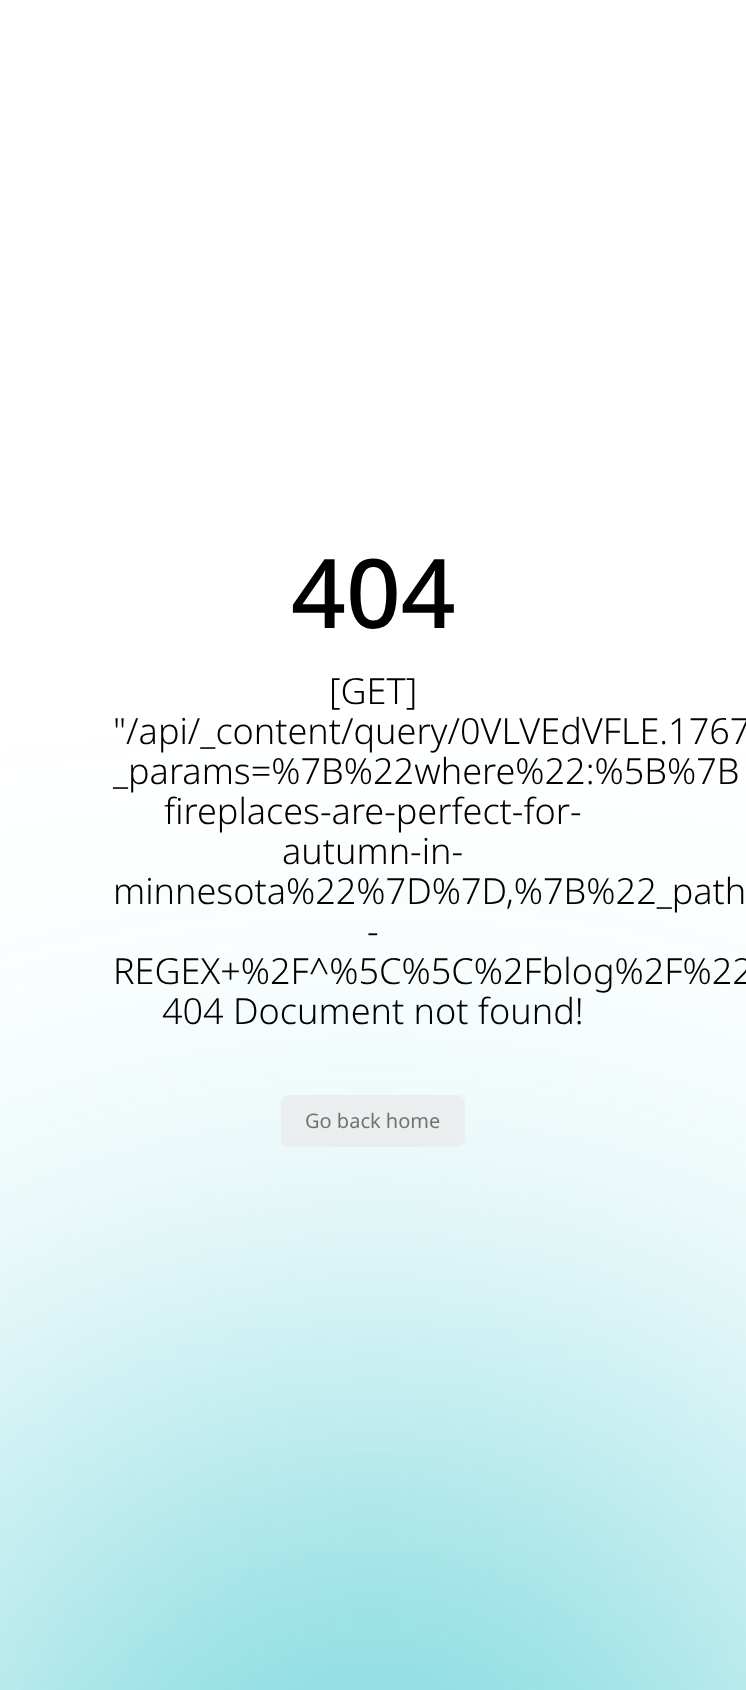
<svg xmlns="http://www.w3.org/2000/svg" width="746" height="1690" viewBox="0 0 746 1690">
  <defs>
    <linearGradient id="g1" gradientUnits="userSpaceOnUse" x1="281" y1="1121" x2="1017" y2="1121"><stop offset="0" stop-color="#e2e2e2" stop-opacity="0.5"/><stop offset="0.25" stop-color="#e2e2e2" stop-opacity="0.5"/><stop offset="0.5" stop-color="#00dc82" stop-opacity="0.5"/><stop offset="0.75" stop-color="#36e4da" stop-opacity="0.5"/><stop offset="1" stop-color="#0047e1" stop-opacity="0.5"/></linearGradient>
  </defs>
  <rect width="100%" height="100%" fill="#fff"/>
  <path d="M0 1521h746v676H0z" fill="#1bbbc6" filter="blur(338px)"/>
  <rect x="281" y="1095" width="184" height="52" rx="8" fill="#ffffff4d"/>
  <text x="291" y="628" font-family="Noto Sans" font-size="96" font-weight="500" fill="#000">404</text>
  <g font-family="Noto Sans" font-size="36" font-weight="300" fill="#000">
    <text x="329" y="704">[GET]</text>
    <text x="113" y="744">"/api/_content/query/0VLVEdVFLE.1767</text>
    <text x="113" y="784">_params=%7B%22where%22:%5B%7B</text>
    <text x="164" y="824">fireplaces-are-perfect-for-</text>
    <text x="282" y="864">autumn-in-</text>
    <text x="113" y="904">minnesota%22%7D%7D,%7B%22_path</text>
    <text x="367" y="944">-</text>
    <text x="113" y="984">REGEX+%2F^%5C%5C%2Fblog%2F%22</text>
    <text x="162" y="1024">404 Document not found!</text>
  </g>
  <text x="305" y="1128" font-family="Noto Sans" font-size="20" fill="#000">Go back home</text>
  <rect x="281" y="1095" width="184" height="52" rx="8" fill="url(#g1)"/>
</svg>
